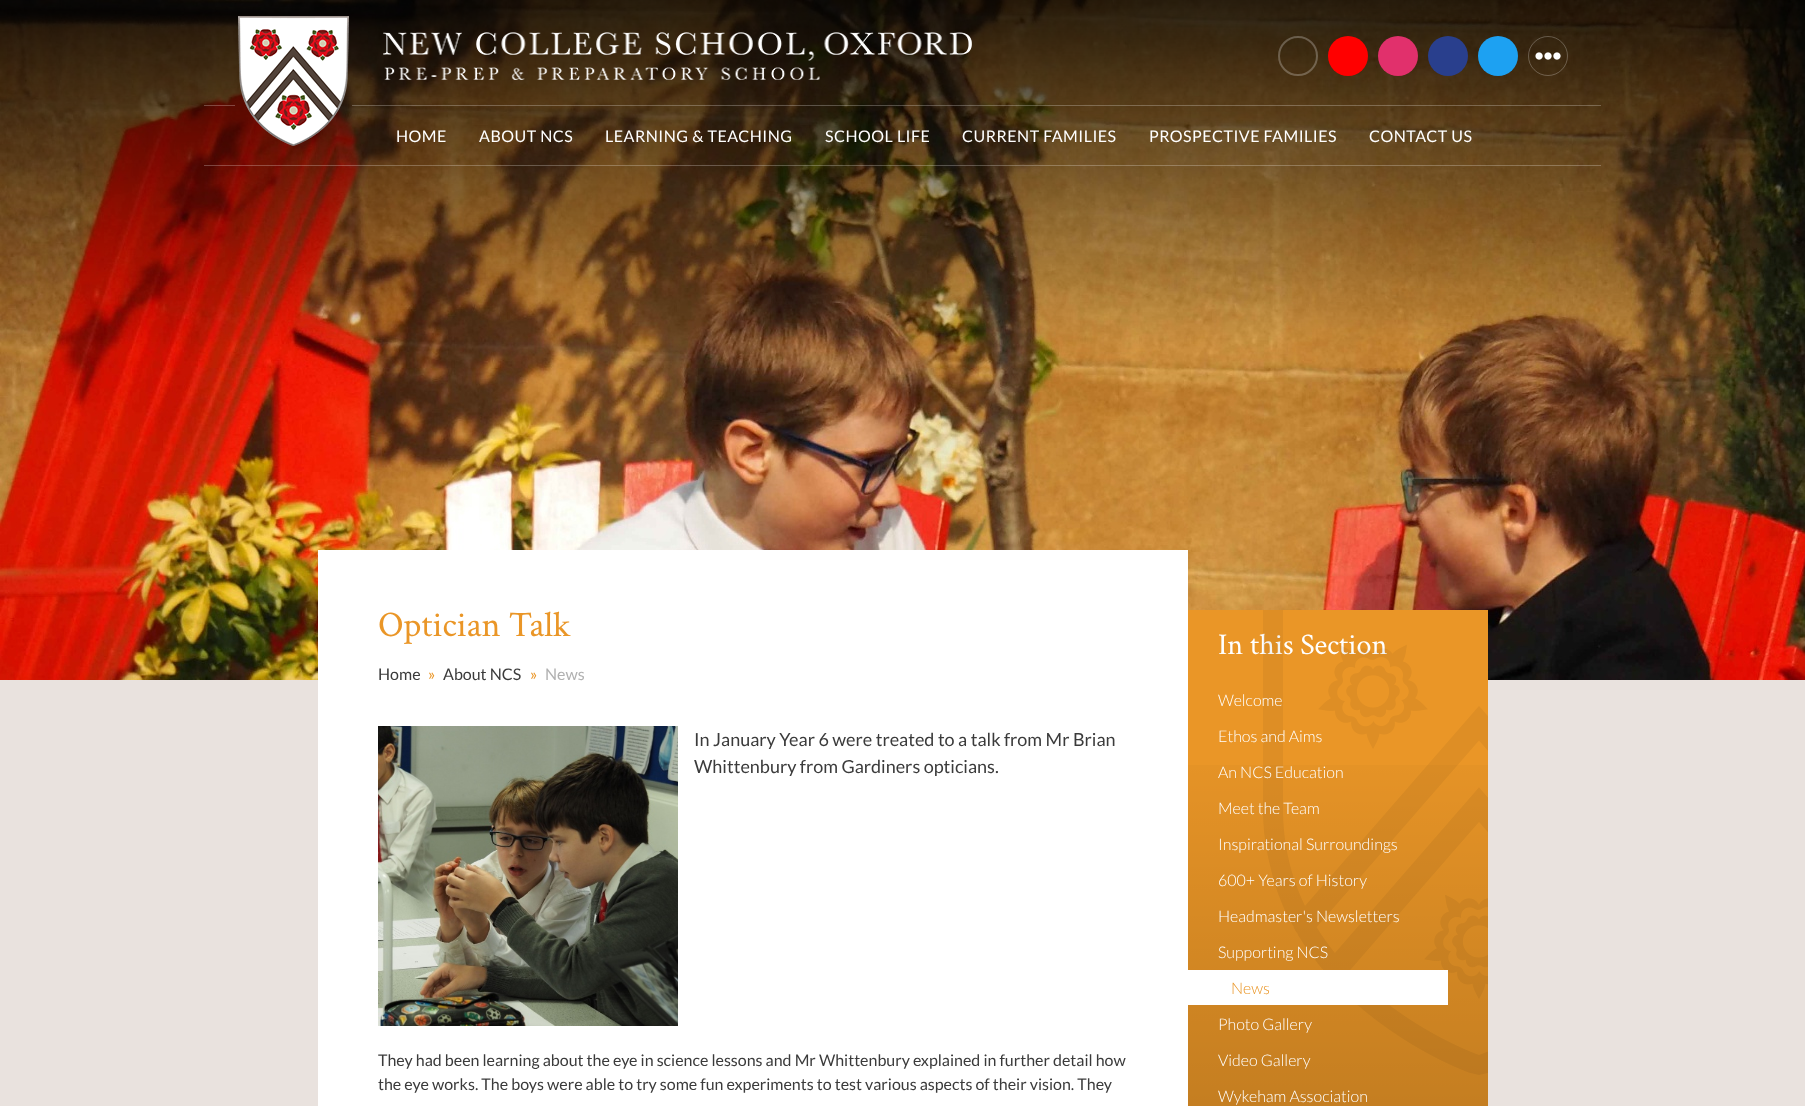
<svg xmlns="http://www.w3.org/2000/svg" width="1805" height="1106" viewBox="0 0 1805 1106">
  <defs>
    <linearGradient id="g1" gradientUnits="userSpaceOnUse" x1="1338" y1="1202" x2="1338" y2="712"><stop offset="0" stop-color="#000" stop-opacity="0.2"/><stop offset="1" stop-color="#000" stop-opacity="0"/></linearGradient>
  </defs>
  <rect width="100%" height="100%" fill="#e9e2de"/>
  <image x="0" y="0" width="1805" height="680" href="img/1.png"/>
  <image x="238" y="16" width="111" height="130" href="img/2.png"/>
  <image x="383" y="32" width="589" height="48" href="img/3.png"/>
  <circle cx="1298" cy="56" r="19" fill="none" stroke="#ffffff40" stroke-width="2"/>
  <circle cx="1348" cy="56" r="20" fill="#f00"/>
  <circle cx="1398" cy="56" r="20" fill="#e1306c"/>
  <circle cx="1448" cy="56" r="20" fill="#293f8d"/>
  <circle cx="1498" cy="56" r="20" fill="#1da1f2"/>
  <circle cx="1548" cy="56" r="19.5" fill="none" stroke="#ffffff40"/>
  <image x="1535" y="52" width="26" height="8" href="img/4.png"/>
  <path d="M204 105h31v1H204z" fill="#ffffff40"/>
  <path d="M352 105h1249v1H352z" fill="#ffffff40"/>
  <path d="M204 165h1397v1H204z" fill="#ffffff40"/>
  <path d="M318 550h870v556H318z" fill="#fff"/>
  <image x="378" y="726" width="300" height="300" href="img/5.png"/>
  <path d="M1188 610h300v496H1188z" fill="#ea9627"/>
  <g font-family="Lato" font-size="16" letter-spacing="0.5" fill="#fff">
    <text x="396" y="142">HOME</text>
    <text x="479" y="142">ABOUT NCS</text>
    <text x="605" y="142">LEARNING &amp; TEACHING</text>
    <text x="825" y="142">SCHOOL LIFE</text>
    <text x="962" y="142">CURRENT FAMILIES</text>
    <text x="1149" y="142">PROSPECTIVE FAMILIES</text>
    <text x="1369" y="142">CONTACT US</text>
  </g>
  <text x="378" y="636" font-family="Crimson Text" font-size="36" fill="#ea9627">Optician Talk</text>
  <text x="378" y="680" font-family="Lato" font-size="16" fill="#3b3b3b">Home</text>
  <text x="428" y="680" font-family="Lato" font-size="16" fill="#ea9627">»</text>
  <text x="443" y="680" font-family="Lato" font-size="16" fill="#3b3b3b">About NCS</text>
  <text x="530" y="680" font-family="Lato" font-size="16" fill="#ea9627">»</text>
  <text x="545" y="680" font-family="Lato" font-size="16" fill="#b1b1b1">News</text>
  <g font-family="Lato" font-size="18" fill="#3b3b3b">
    <text x="694" y="746">In January Year 6 were treated to a talk from Mr Brian</text>
    <text x="694" y="773">Whittenbury from Gardiners opticians.</text>
  </g>
  <g font-family="Lato" font-size="16" fill="#3b3b3b">
    <text x="378" y="1066">They had been learning about the eye in science lessons and Mr Whittenbury explained in further detail how</text>
    <text x="378" y="1090">the eye works. The boys were able to try some fun experiments to test various aspects of their vision. They</text>
  </g>
  <text x="1218" y="654" font-family="Crimson Text" font-size="30" fill="#fff">In this Section</text>
  <image x="1263" y="610" width="225" height="465" href="img/6.png"/>
  <g font-family="Lato" font-size="16" font-weight="300" fill="#fff">
    <text x="1218" y="706">Welcome</text>
    <text x="1218" y="742">Ethos and Aims</text>
  </g>
  <path d="M1188 765h300v341H1188z" fill="url(#g1)"/>
  <g font-family="Lato" font-size="16" font-weight="300" fill="#fff">
    <text x="1218" y="778">An NCS Education</text>
    <text x="1218" y="814">Meet the Team</text>
    <text x="1218" y="850">Inspirational Surroundings</text>
    <text x="1218" y="886">600+ Years of History</text>
    <text x="1218" y="922">Headmaster's Newsletters</text>
    <text x="1218" y="958">Supporting NCS</text>
  </g>
  <path d="M1188 970h260v35H1188z" fill="#fff"/>
  <text x="1231" y="994" font-family="Lato" font-size="16" font-weight="300" fill="#ea9627">News</text>
  <g font-family="Lato" font-size="16" font-weight="300" fill="#fff">
    <text x="1218" y="1030">Photo Gallery</text>
    <text x="1218" y="1066">Video Gallery</text>
    <text x="1218" y="1102">Wykeham Association</text>
  </g>
</svg>
